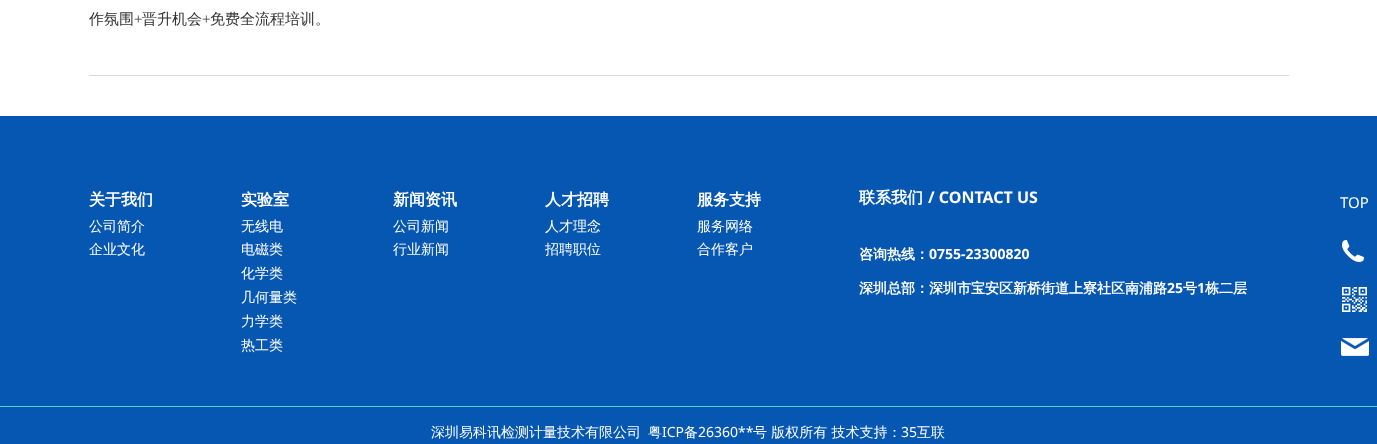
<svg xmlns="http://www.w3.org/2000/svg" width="1377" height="444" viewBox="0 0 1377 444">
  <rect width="100%" height="100%" fill="#fff"/>
  <path d="M89 75h1200v1H89z" fill="#d9d9d9"/>
  <path d="M0 116h1377v328H0z" fill="#0657b2"/>
  <path d="M0 406h1377v1H0z" fill="#54d0ce"/>
  <image x="1342" y="240" width="22" height="22" href="img/1.png"/>
  <image x="1342" y="287" width="25" height="25" href="img/2.png"/>
  <image x="1341" y="338" width="28" height="18" href="img/3.png"/>
  <text x="89" y="24" font-family="WenQuanYi Zen Hei" font-size="15" font-weight="500" fill="#333">作氛围</text>
  <text x="134" y="24" font-family="Liberation Serif" font-size="15" fill="#333">+</text>
  <text x="142" y="24" font-family="WenQuanYi Zen Hei" font-size="15" font-weight="500" fill="#333">晋升机会</text>
  <text x="202" y="24" font-family="Liberation Serif" font-size="15" fill="#333">+</text>
  <text x="210" y="24" font-family="WenQuanYi Zen Hei" font-size="15" font-weight="500" fill="#333">免费全流程培训。</text>
  <text x="89" y="205" font-family="WenQuanYi Zen Hei" font-size="16" font-weight="bold" fill="#fff">关于我们</text>
  <g font-family="WenQuanYi Zen Hei" font-size="14" font-weight="500" fill="#fff">
    <text x="89" y="231">公司简介</text>
    <text x="89" y="254">企业文化</text>
  </g>
  <text x="241" y="205" font-family="WenQuanYi Zen Hei" font-size="16" font-weight="bold" fill="#fff">实验室</text>
  <g font-family="WenQuanYi Zen Hei" font-size="14" font-weight="500" fill="#fff">
    <text x="241" y="231">无线电</text>
    <text x="241" y="254">电磁类</text>
    <text x="241" y="278">化学类</text>
    <text x="241" y="302">几何量类</text>
    <text x="241" y="326">力学类</text>
    <text x="241" y="350">热工类</text>
  </g>
  <text x="393" y="205" font-family="WenQuanYi Zen Hei" font-size="16" font-weight="bold" fill="#fff">新闻资讯</text>
  <g font-family="WenQuanYi Zen Hei" font-size="14" font-weight="500" fill="#fff">
    <text x="393" y="231">公司新闻</text>
    <text x="393" y="254">行业新闻</text>
  </g>
  <text x="545" y="205" font-family="WenQuanYi Zen Hei" font-size="16" font-weight="bold" fill="#fff">人才招聘</text>
  <g font-family="WenQuanYi Zen Hei" font-size="14" font-weight="500" fill="#fff">
    <text x="545" y="231">人才理念</text>
    <text x="545" y="254">招聘职位</text>
  </g>
  <text x="697" y="205" font-family="WenQuanYi Zen Hei" font-size="16" font-weight="bold" fill="#fff">服务支持</text>
  <g font-family="WenQuanYi Zen Hei" font-size="14" font-weight="500" fill="#fff">
    <text x="697" y="231">服务网络</text>
    <text x="697" y="254">合作客户</text>
  </g>
  <text x="859" y="203" font-family="WenQuanYi Zen Hei" font-size="16" font-weight="bold" fill="#fff">联系我们</text>
  <text x="928" y="203" font-family="Noto Sans" font-size="16" font-weight="bold" fill="#fff">/ CONTACT US</text>
  <text x="859" y="259" font-family="WenQuanYi Zen Hei" font-size="14" font-weight="bold" fill="#fff">咨询热线：</text>
  <text x="929" y="259" font-family="Noto Sans" font-size="14" font-weight="bold" fill="#fff">0755-23300820</text>
  <text x="859" y="293" font-family="WenQuanYi Zen Hei" font-size="14" font-weight="bold" fill="#fff">深圳总部：深圳市宝安区新桥街道上寮社区南浦路</text>
  <text x="1167" y="293" font-family="Noto Sans" font-size="14" font-weight="bold" fill="#fff">25</text>
  <text x="1183" y="293" font-family="WenQuanYi Zen Hei" font-size="14" font-weight="bold" fill="#fff">号</text>
  <text x="1197" y="293" font-family="Noto Sans" font-size="14" font-weight="bold" fill="#fff">1</text>
  <text x="1205" y="293" font-family="WenQuanYi Zen Hei" font-size="14" font-weight="bold" fill="#fff">栋二层</text>
  <g font-family="WenQuanYi Zen Hei" font-size="14" font-weight="500" fill="#fff">
    <text x="431" y="437">深圳易科讯检测计量技术有限公司</text>
    <text x="648" y="437">粤</text>
  </g>
  <text x="662" y="437" font-family="Noto Sans" font-size="14" fill="#fff">ICP</text>
  <text x="684" y="437" font-family="WenQuanYi Zen Hei" font-size="14" font-weight="500" fill="#fff">备</text>
  <text x="698" y="437" font-family="Noto Sans" font-size="14" fill="#fff">26360**</text>
  <text x="753" y="437" font-family="WenQuanYi Zen Hei" font-size="14" font-weight="500" fill="#fff">号 版权所有 技术支持：</text>
  <text x="901" y="437" font-family="Noto Sans" font-size="14" fill="#fff">35</text>
  <text x="917" y="437" font-family="WenQuanYi Zen Hei" font-size="14" font-weight="500" fill="#fff">互联</text>
  <text x="1340" y="208" font-family="Noto Sans" font-size="15" fill="#fff">TOP</text>
</svg>
